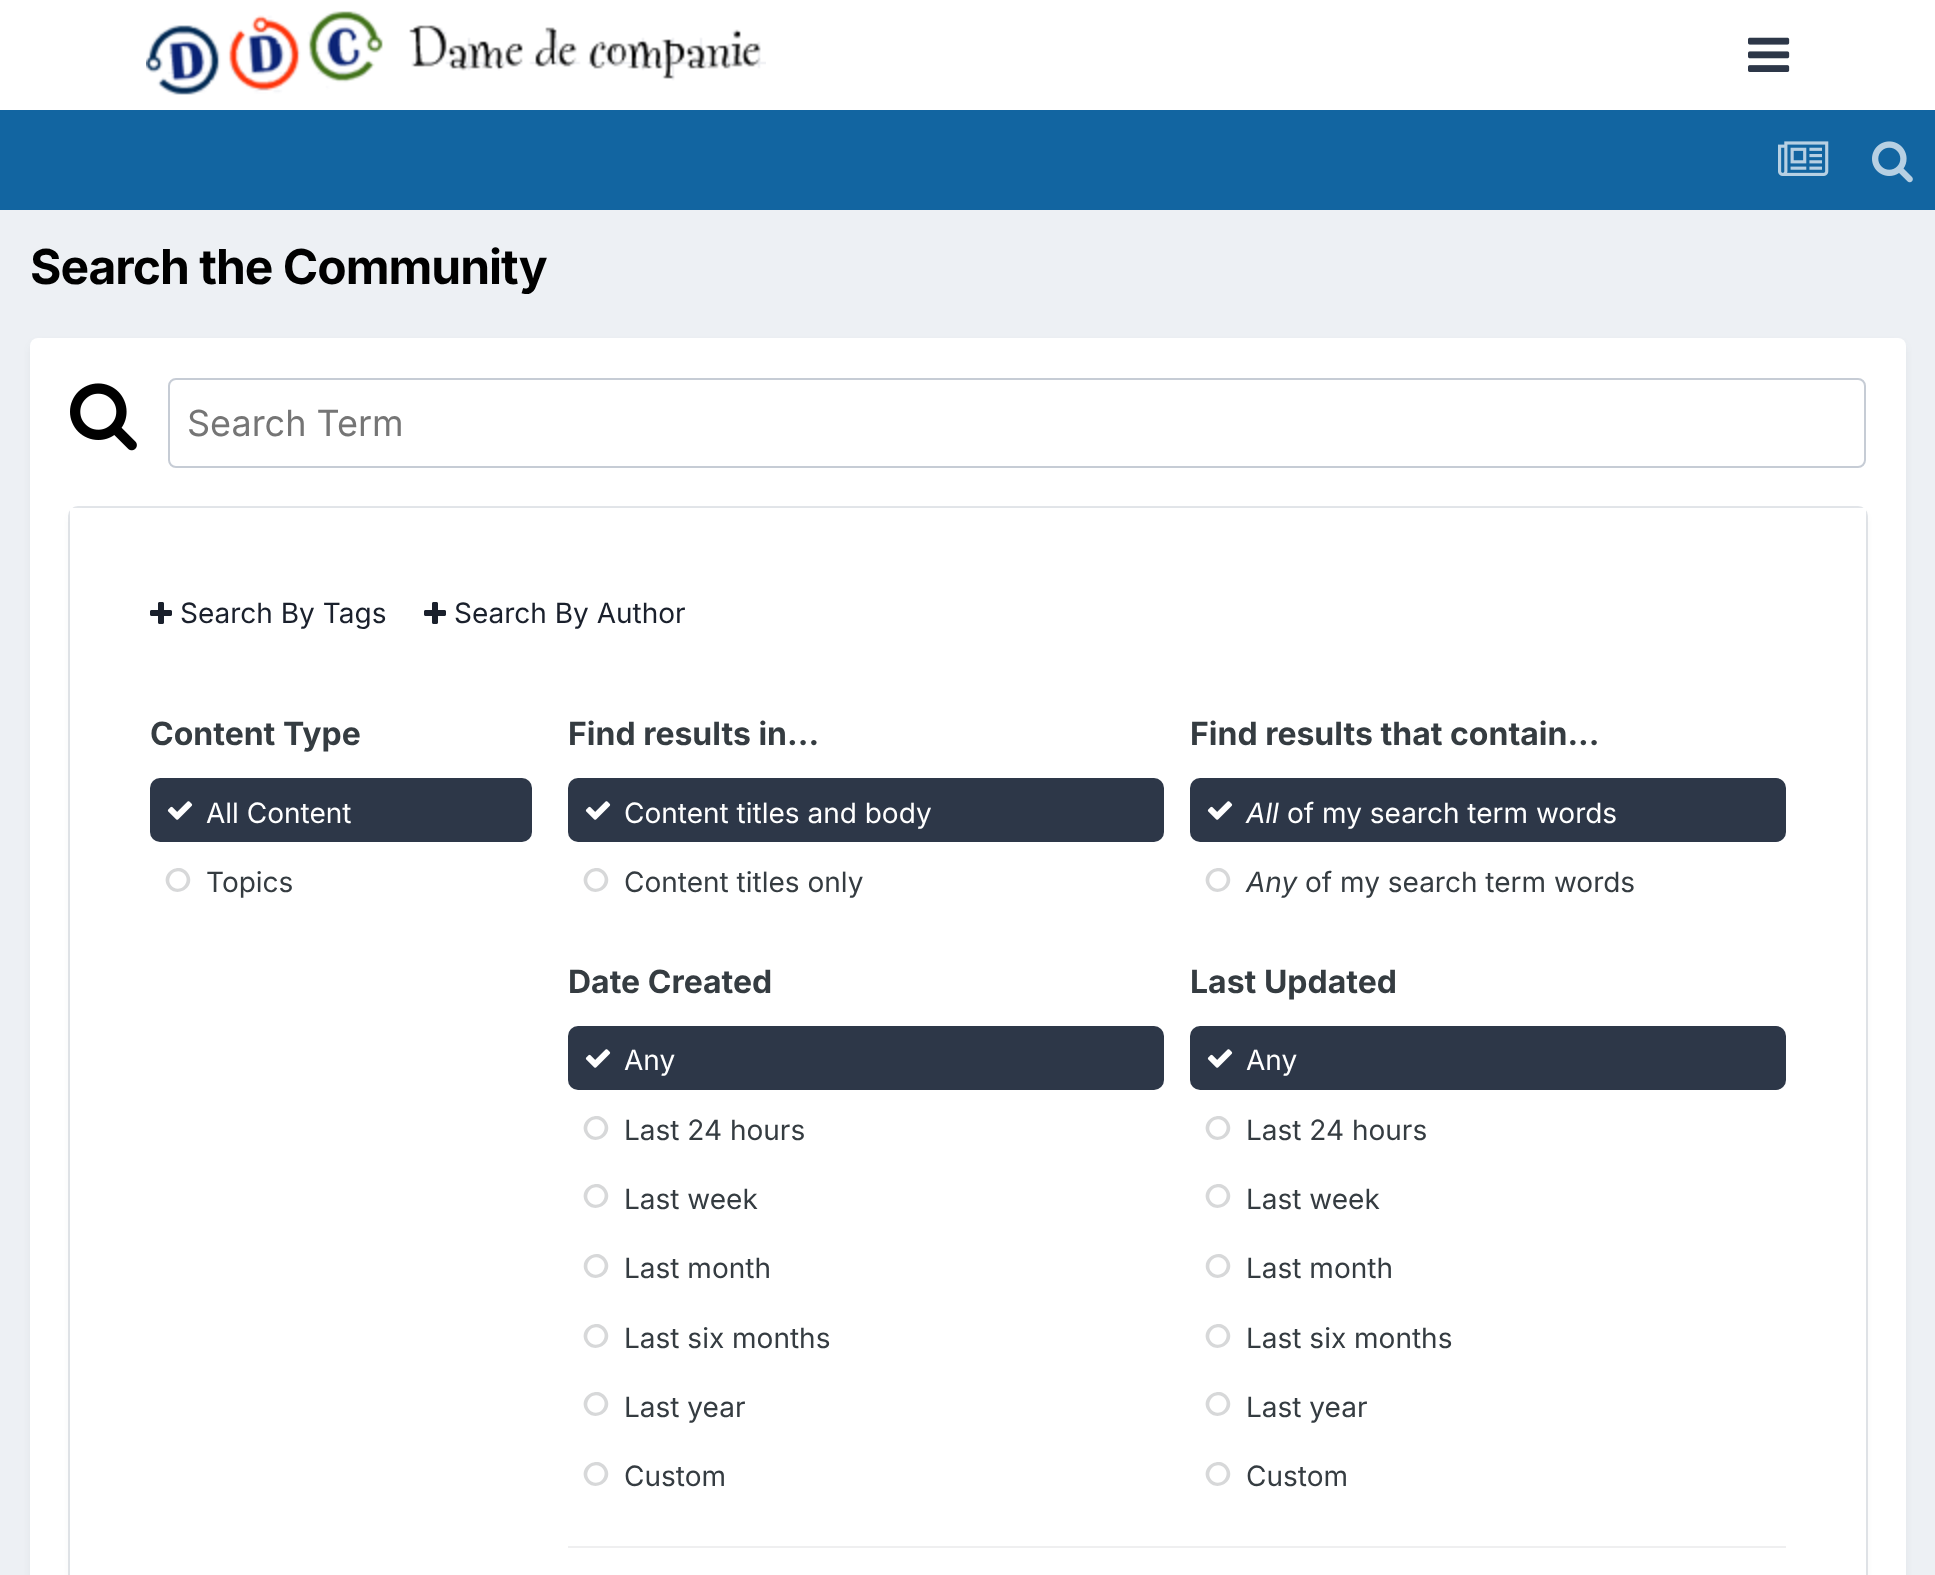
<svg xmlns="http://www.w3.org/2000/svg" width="1935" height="1575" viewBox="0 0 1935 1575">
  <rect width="100%" height="100%" fill="#edf0f4"/>
  <path d="M0 0h1935v110H0z" fill="#fff"/>
  <image x="146" y="11" width="620" height="84" href="img/1.png"/>
  <image x="1748" y="37" width="42" height="35" href="img/2.png"/>
  <path d="M0 110h1935v100H0z" fill="#1265a1"/>
  <image x="1778" y="141" width="51" height="35" href="img/3.png"/>
  <image x="1872" y="141" width="41" height="42" href="img/4.png"/>
  <rect x="32" y="344" width="1872" height="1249" rx="6" fill="#2d37481a" filter="blur(4px)"/>
  <rect x="30" y="338" width="1876" height="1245" rx="8" fill="#fff"/>
  <image x="70" y="383" width="67" height="68" href="img/5.png"/>
  <rect x="169" y="379" width="1696" height="88" rx="7" fill="none" stroke="#c6ccd5" stroke-width="2"/>
  <rect x="72" y="514" width="1792" height="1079" rx="6" fill="#2d37481a" filter="blur(4px)"/>
  <rect x="69" y="507" width="1798" height="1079" rx="9" fill="none" stroke="#71809633" stroke-width="2"/>
  <path d="M70 508h1796v1067H70z" fill="#fff"/>
  <image x="150" y="602" width="22" height="22" href="img/6.png"/>
  <image x="424" y="602" width="22" height="22" href="img/6.png"/>
  <rect x="150" y="778" width="382" height="64" rx="10" fill="#2d3748"/>
  <image x="167" y="801" width="26" height="19" href="img/7.png"/>
  <path d="M182.5 872.5C172.5 867 164 881.5 173.5 887.5C183.5 893 192 878.5 182.5 872.5ZM188.5 874C196.5 887.5 175.5 899.5 167.5 886C159.5 872.5 180.5 860.5 188.5 874Z" fill="#d7d8d9"/>
  <rect x="568" y="778" width="596" height="64" rx="10" fill="#2d3748"/>
  <image x="585" y="801" width="26" height="19" href="img/7.png"/>
  <path d="M600.5 872.5C590.5 867 582 881.5 591.5 887.5C601.5 893 610 878.5 600.5 872.5ZM606.5 874C614.5 887.5 593.5 899.5 585.5 886C577.5 872.5 598.5 860.5 606.5 874Z" fill="#d7d8d9"/>
  <rect x="1190" y="778" width="596" height="64" rx="10" fill="#2d3748"/>
  <image x="1207" y="801" width="26" height="19" href="img/7.png"/>
  <path d="M1222.5 872.5C1212.5 867 1204 881.5 1213.5 887.5C1223.5 893 1232 878.5 1222.5 872.5ZM1228.5 874C1236.5 887.5 1215.5 899.5 1207.5 886C1199.5 872.5 1220.5 860.5 1228.5 874Z" fill="#d7d8d9"/>
  <rect x="568" y="1026" width="596" height="64" rx="10" fill="#2d3748"/>
  <image x="585" y="1049" width="26" height="19" href="img/7.png"/>
  <path d="M600.5 1120.5C590.5 1115 582 1129.5 591.5 1135.5C601.5 1141 610 1126.5 600.5 1120.5ZM606.5 1122C614.5 1135.5 593.5 1147.5 585.5 1134C577.5 1120.5 598.5 1108.5 606.5 1122Z" fill="#d7d8d9"/>
  <path d="M600.5 1188.5C590.5 1183 582 1197.5 591.5 1203.5C601.5 1209 610 1194.5 600.5 1188.5ZM606.5 1190C614.5 1203.5 593.5 1215.5 585.5 1202C577.5 1188.5 598.5 1176.5 606.5 1190Z" fill="#d7d8d9"/>
  <path d="M600.5 1258.5C590.5 1253 582 1267.5 591.5 1273.5C601.5 1279 610 1264.5 600.5 1258.5ZM606.5 1260C614.5 1273.5 593.5 1285.5 585.5 1272C577.5 1258.5 598.5 1246.5 606.5 1260Z" fill="#d7d8d9"/>
  <path d="M600.5 1328.5C590.5 1323 582 1337.5 591.5 1343.5C601.5 1349 610 1334.5 600.5 1328.5ZM606.5 1330C614.5 1343.5 593.5 1355.5 585.5 1342C577.5 1328.5 598.5 1316.5 606.5 1330Z" fill="#d7d8d9"/>
  <path d="M600.5 1396.5C590.5 1391 582 1405.5 591.5 1411.5C601.5 1417 610 1402.5 600.5 1396.5ZM606.5 1398C614.5 1411.5 593.5 1423.5 585.5 1410C577.5 1396.5 598.5 1384.5 606.5 1398Z" fill="#d7d8d9"/>
  <path d="M600.5 1466.5C590.5 1461 582 1475.5 591.5 1481.5C601.5 1487 610 1472.5 600.5 1466.5ZM606.5 1468C614.5 1481.5 593.5 1493.5 585.5 1480C577.5 1466.5 598.5 1454.5 606.5 1468Z" fill="#d7d8d9"/>
  <rect x="1190" y="1026" width="596" height="64" rx="10" fill="#2d3748"/>
  <image x="1207" y="1049" width="26" height="19" href="img/7.png"/>
  <path d="M1222.5 1120.5C1212.5 1115 1204 1129.5 1213.5 1135.5C1223.5 1141 1232 1126.5 1222.5 1120.5ZM1228.5 1122C1236.5 1135.5 1215.5 1147.5 1207.5 1134C1199.5 1120.5 1220.5 1108.5 1228.5 1122Z" fill="#d7d8d9"/>
  <path d="M1222.5 1188.5C1212.5 1183 1204 1197.5 1213.5 1203.5C1223.5 1209 1232 1194.5 1222.5 1188.5ZM1228.5 1190C1236.5 1203.5 1215.5 1215.5 1207.5 1202C1199.5 1188.5 1220.5 1176.5 1228.5 1190Z" fill="#d7d8d9"/>
  <path d="M1222.5 1258.5C1212.5 1253 1204 1267.5 1213.5 1273.5C1223.5 1279 1232 1264.5 1222.5 1258.5ZM1228.5 1260C1236.5 1273.5 1215.5 1285.5 1207.5 1272C1199.5 1258.5 1220.5 1246.5 1228.5 1260Z" fill="#d7d8d9"/>
  <path d="M1222.5 1328.5C1212.5 1323 1204 1337.5 1213.5 1343.5C1223.5 1349 1232 1334.5 1222.5 1328.5ZM1228.5 1330C1236.5 1343.5 1215.5 1355.5 1207.5 1342C1199.5 1328.5 1220.5 1316.5 1228.5 1330Z" fill="#d7d8d9"/>
  <path d="M1222.5 1396.5C1212.5 1391 1204 1405.5 1213.5 1411.5C1223.5 1417 1232 1402.5 1222.5 1396.5ZM1228.5 1398C1236.5 1411.5 1215.5 1423.5 1207.5 1410C1199.5 1396.5 1220.5 1384.5 1228.5 1398Z" fill="#d7d8d9"/>
  <path d="M1222.5 1466.5C1212.5 1461 1204 1475.5 1213.5 1481.5C1223.5 1487 1232 1472.5 1222.5 1466.5ZM1228.5 1468C1236.5 1481.5 1215.5 1493.5 1207.5 1480C1199.5 1466.5 1220.5 1454.5 1228.5 1468Z" fill="#d7d8d9"/>
  <path d="M568 1546h1218v2H568z" fill="#efeff0"/>
  <text x="30" y="284" font-family="Inter" font-size="48" font-weight="bold" letter-spacing="-1" fill="#000">Search the Community</text>
  <text x="187" y="436" font-family="Inter" font-size="36" fill="#757575">Search Term</text>
  <g font-family="Inter" font-size="28" fill="#1a202c">
    <text x="180" y="623">Search By Tags</text>
    <text x="454" y="623">Search By Author</text>
  </g>
  <text x="150" y="745" font-family="Inter" font-size="32" font-weight="bold" fill="#353c41">Content Type</text>
  <text x="206" y="823" font-family="Inter" font-size="28" fill="#fff">All Content</text>
  <text x="206" y="892" font-family="Inter" font-size="28" fill="#353c41">Topics</text>
  <text x="568" y="745" font-family="Inter" font-size="32" font-weight="bold" fill="#353c41">Find results in...</text>
  <text x="624" y="823" font-family="Inter" font-size="28" fill="#fff">Content titles and body</text>
  <text x="624" y="892" font-family="Inter" font-size="28" fill="#353c41">Content titles only</text>
  <text x="1190" y="745" font-family="Inter" font-size="32" font-weight="bold" fill="#353c41">Find results that contain...</text>
  <text x="1246" y="823" font-family="Inter" font-size="28" font-style="italic" fill="#fff">All</text>
  <text x="1287" y="823" font-family="Inter" font-size="28" fill="#fff">of my search term words</text>
  <text x="1246" y="892" font-family="Inter" font-size="28" font-style="italic" fill="#353c41">Any</text>
  <text x="1305" y="892" font-family="Inter" font-size="28" fill="#353c41">of my search term words</text>
  <text x="568" y="993" font-family="Inter" font-size="32" font-weight="bold" fill="#353c41">Date Created</text>
  <text x="624" y="1070" font-family="Inter" font-size="28" fill="#fff">Any</text>
  <g font-family="Inter" font-size="28" fill="#353c41">
    <text x="624" y="1140">Last 24 hours</text>
    <text x="624" y="1209">Last week</text>
    <text x="624" y="1278">Last month</text>
    <text x="624" y="1348">Last six months</text>
    <text x="624" y="1417">Last year</text>
    <text x="624" y="1486">Custom</text>
  </g>
  <text x="1190" y="993" font-family="Inter" font-size="32" font-weight="bold" fill="#353c41">Last Updated</text>
  <text x="1246" y="1070" font-family="Inter" font-size="28" fill="#fff">Any</text>
  <g font-family="Inter" font-size="28" fill="#353c41">
    <text x="1246" y="1140">Last 24 hours</text>
    <text x="1246" y="1209">Last week</text>
    <text x="1246" y="1278">Last month</text>
    <text x="1246" y="1348">Last six months</text>
    <text x="1246" y="1417">Last year</text>
    <text x="1246" y="1486">Custom</text>
  </g>
</svg>
